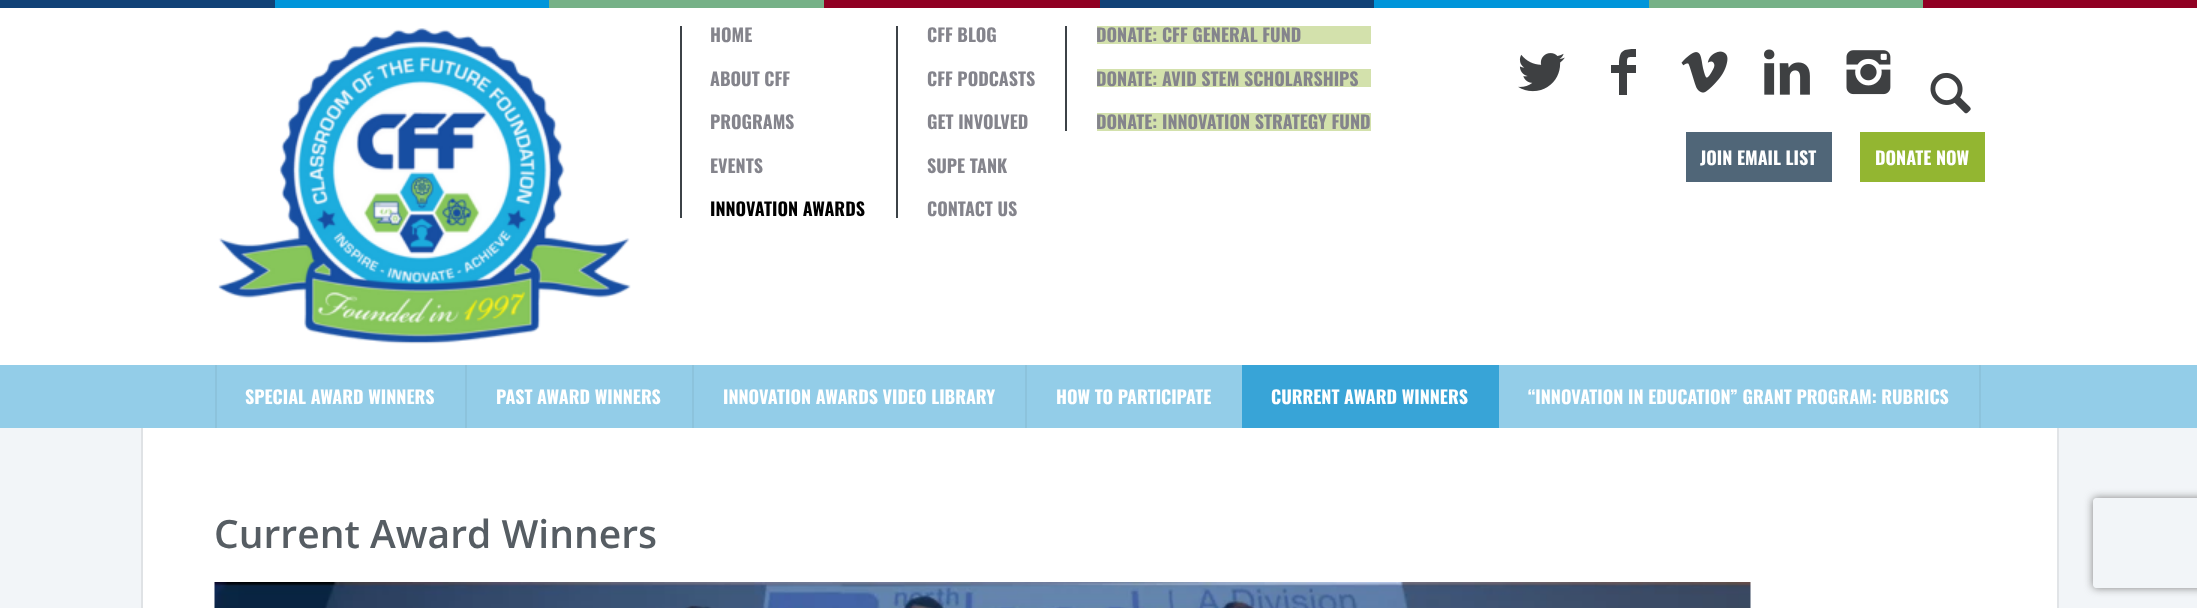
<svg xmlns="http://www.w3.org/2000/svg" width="2197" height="608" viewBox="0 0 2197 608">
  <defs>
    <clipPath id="clip1"><path d="M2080 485H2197V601H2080ZM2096 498H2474C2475.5 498 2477 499.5 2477 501V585C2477 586.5 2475.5 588 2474 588H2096C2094.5 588 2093 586.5 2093 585V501C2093 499.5 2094.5 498 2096 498Z" clip-rule="evenodd"/></clipPath>
  </defs>
  <rect width="100%" height="100%" fill="#f2f5f8"/>
  <path d="M0 8h2197v357H0z" fill="#fff"/>
  <path d="M0 0h275v8H0z" fill="#114277"/>
  <path d="M275 0h274v8H275z" fill="#0095da"/>
  <path d="M549 0h275v8H549z" fill="#76b187"/>
  <path d="M824 0h276v8H824z" fill="#900023"/>
  <path d="M1100 0h274v8H1100z" fill="#114277"/>
  <path d="M1374 0h275v8H1374z" fill="#0095da"/>
  <path d="M1649 0h274v8H1649z" fill="#76b187"/>
  <path d="M1923 0h274v8H1923z" fill="#900023"/>
  <image x="218" y="28" width="413" height="316" href="img/1.png"/>
  <path d="M680 26h2v192H680z" fill="#3c4247"/>
  <path d="M896 26h2v192H896z" fill="#3c4247"/>
  <path d="M1065 26h2v105H1065z" fill="#3c4247"/>
  <path d="M1097 26h274v18H1097z" fill="#d3e1ac"/>
  <path d="M1097 69h274v18H1097z" fill="#d3e1ac"/>
  <path d="M1097 113h274v18H1097z" fill="#d3e1ac"/>
  <image x="1518" y="53" width="47" height="39" href="img/2.png"/>
  <path d="M1636 57C1627 57 1627 56 1627 65H1636V73H1627V95H1619V73H1611V65H1619C1619 50 1623 49 1636 49Z" fill="#3e4042"/>
  <image x="1681" y="51" width="47" height="42" href="img/3.png"/>
  <image x="1764" y="49" width="46" height="46" href="img/4.png"/>
  <image x="1846" y="50" width="45" height="45" href="img/5.png"/>
  <image x="1930" y="72" width="41" height="42" href="img/6.png"/>
  <path d="M1686 132h146v50H1686z" fill="#506678"/>
  <path d="M1860 132h125v50H1860z" fill="#93b631"/>
  <path d="M0 365h2197v63H0z" fill="#93cde8"/>
  <path d="M465 365h2v63H465z" fill="#8cc3dc"/>
  <path d="M215 365h2v63H215z" fill="#8cc3dc"/>
  <path d="M692 365h2v63H692z" fill="#8cc3dc"/>
  <path d="M1025 365h2v63H1025z" fill="#8cc3dc"/>
  <path d="M1242 365h257v63H1242z" fill="#38a4d7"/>
  <path d="M1979 365h2v63H1979z" fill="#8cc3dc"/>
  <path d="M143 428h1914v180H143z" fill="#fff"/>
  <path d="M2057 428h2v180H2057z" fill="#e1e4e7"/>
  <path d="M141 428h2v180H141z" fill="#dfe2e5"/>
  <image x="214" y="582" width="1537" height="26" href="img/7.png"/>
  <g clip-path="url(#clip1)">
    <rect x="2093" y="498" width="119" height="90" rx="3" fill="#808080" filter="blur(4px)"/>
  </g>
  <g font-family="Oswald" font-size="18" font-weight="bold" fill="#84848c">
    <text x="710" y="42">HOME</text>
    <text x="710" y="86">ABOUT CFF</text>
    <text x="710" y="129">PROGRAMS</text>
    <text x="710" y="173">EVENTS</text>
  </g>
  <text x="710" y="216" font-family="Oswald" font-size="18" font-weight="bold" fill="#000">INNOVATION AWARDS</text>
  <g font-family="Oswald" font-size="18" font-weight="bold" fill="#84848c">
    <text x="927" y="42">CFF BLOG</text>
    <text x="927" y="86">CFF PODCASTS</text>
    <text x="927" y="129">GET INVOLVED</text>
    <text x="927" y="173">SUPE TANK</text>
    <text x="927" y="216">CONTACT US</text>
    <text x="1096" y="42">DONATE: CFF GENERAL FUND</text>
    <text x="1096" y="86">DONATE: AVID STEM SCHOLARSHIPS</text>
    <text x="1096" y="129">DONATE: INNOVATION STRATEGY FUND</text>
  </g>
  <g font-family="Oswald" font-size="18" font-weight="bold" fill="#fff">
    <text x="1700" y="165">JOIN EMAIL LIST</text>
    <text x="1875" y="165">DONATE NOW</text>
    <text x="245" y="404">SPECIAL AWARD WINNERS</text>
    <text x="496" y="404">PAST AWARD WINNERS</text>
    <text x="723" y="404">INNOVATION AWARDS VIDEO LIBRARY</text>
    <text x="1056" y="404">HOW TO PARTICIPATE</text>
    <text x="1271" y="404">CURRENT AWARD WINNERS</text>
    <text x="1528" y="404">“INNOVATION IN EDUCATION” GRANT PROGRAM: RUBRICS</text>
  </g>
  <text x="214" y="548" font-family="Open Sans" font-size="39" font-weight="600" fill="#565d63">Current Award Winners</text>
</svg>
